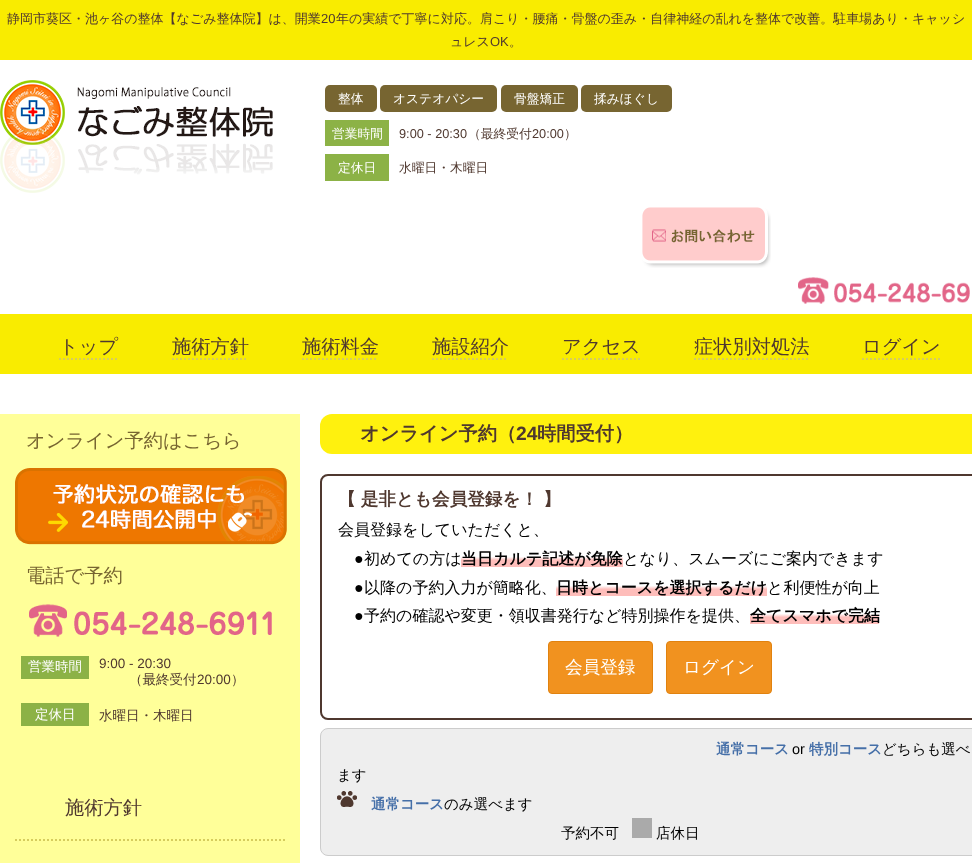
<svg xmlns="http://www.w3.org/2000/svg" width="972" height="863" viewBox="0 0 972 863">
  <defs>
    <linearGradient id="g1" gradientUnits="userSpaceOnUse" x1="461" y1="550" x2="461" y2="567"><stop offset="0.4" stop-color="#fff"/><stop offset="0.6" stop-color="#febdba"/></linearGradient>
    <linearGradient id="g2" gradientUnits="userSpaceOnUse" x1="556" y1="579" x2="556" y2="596"><stop offset="0.4" stop-color="#fff"/><stop offset="0.6" stop-color="#febdba"/></linearGradient>
    <linearGradient id="g3" gradientUnits="userSpaceOnUse" x1="750" y1="607" x2="750" y2="624"><stop offset="0.4" stop-color="#fff"/><stop offset="0.6" stop-color="#febdba"/></linearGradient>
  </defs>
  <rect width="100%" height="100%" fill="#fff"/>
  <path d="M0 0h972v60H0z" fill="#f9ec00"/>
  <image x="0" y="80" width="273" height="113" href="img/1.png"/>
  <rect x="325" y="85" width="52" height="27" rx="5" fill="#776531"/>
  <rect x="380" y="85" width="117" height="27" rx="5" fill="#776531"/>
  <rect x="501" y="85" width="77" height="27" rx="5" fill="#776531"/>
  <rect x="581" y="85" width="91" height="27" rx="5" fill="#776531"/>
  <path d="M325 120h64v26H325z" fill="#8cb246"/>
  <path d="M325 154h64v27H325z" fill="#8cb246"/>
  <image x="642" y="207" width="129" height="61" href="img/2.png"/>
  <image x="798" y="277" width="172" height="27" href="img/3.png"/>
  <path d="M0 314h972v60H0z" fill="#f9ec00"/>
  <path d="M59 359H118" fill="none" stroke="#d5cc5e" stroke-width="2" stroke-dasharray="2 2"/>
  <path d="M172 359H248" fill="none" stroke="#d5cc5e" stroke-width="2" stroke-dasharray="2 2"/>
  <path d="M302 359H378" fill="none" stroke="#d5cc5e" stroke-width="2" stroke-dasharray="2 2"/>
  <path d="M432 359H508" fill="none" stroke="#d5cc5e" stroke-width="2" stroke-dasharray="2 2"/>
  <path d="M562 359H640" fill="none" stroke="#d5cc5e" stroke-width="2" stroke-dasharray="2 2"/>
  <path d="M694 359H809" fill="none" stroke="#d5cc5e" stroke-width="2" stroke-dasharray="2 2"/>
  <path d="M862 359H941" fill="none" stroke="#d5cc5e" stroke-width="2" stroke-dasharray="2 2"/>
  <path d="M0 414h300v449H0z" fill="#ff9"/>
  <image x="15" y="468" width="272" height="77" href="img/4.png"/>
  <image x="29" y="604" width="243" height="33" href="img/5.png"/>
  <path d="M21 656h68v23H21z" fill="#8cb246"/>
  <path d="M21 703h68v23H21z" fill="#8cb246"/>
  <path d="M15 840H285" fill="none" stroke="#d5cc5e" stroke-width="2" stroke-dasharray="2 2"/>
  <rect x="320" y="414" width="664" height="40" rx="12" fill="#fff10e"/>
  <rect x="321" y="475" width="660" height="244" rx="7" fill="none" stroke="#4f382f" stroke-width="2"/>
  <path d="M461 557h162v10H461z" fill="url(#g1)"/>
  <path d="M556 586h211v10H556z" fill="url(#g2)"/>
  <path d="M750 614h129v10H750z" fill="url(#g3)"/>
  <rect x="548.5" y="641.5" width="104" height="52" rx="3.5" fill="#f1921f" stroke="#e1820f"/>
  <rect x="666.5" y="641.5" width="105" height="52" rx="3.5" fill="#f1921f" stroke="#e1820f"/>
  <rect x="320.5" y="728.5" width="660" height="127" rx="7.5" fill="#eee" stroke="#ccc"/>
  <image x="337" y="791" width="20" height="16" href="img/6.png"/>
  <path d="M632 818h20v20H632z" fill="#aaa"/>
  <text x="7" y="23" font-family="WenQuanYi Zen Hei" font-size="13" font-weight="500" fill="#4f382f">静岡市葵区・池ヶ谷の整体【なごみ整体院】は、開業</text>
  <text x="321" y="23" font-family="Liberation Sans" font-size="13" fill="#4f382f">20</text>
  <g font-family="WenQuanYi Zen Hei" font-size="13" font-weight="500" fill="#4f382f">
    <text x="336" y="23">年の実績で丁寧に対応。肩こり・腰痛・骨盤の歪み・自律神経の乱れを整体で改善。駐車場あり・キャッシ</text>
    <text x="450" y="46">ュレス</text>
  </g>
  <text x="490" y="46" font-family="Liberation Sans" font-size="13" fill="#4f382f">OK</text>
  <text x="509" y="46" font-family="WenQuanYi Zen Hei" font-size="13" font-weight="500" fill="#4f382f">。</text>
  <g font-family="WenQuanYi Zen Hei" font-size="12.75" font-weight="500" fill="#fff">
    <text x="338" y="103">整体</text>
    <text x="393" y="103">オステオパシー</text>
    <text x="514" y="103">骨盤矯正</text>
    <text x="594" y="103">揉みほぐし</text>
    <text x="332" y="138">営業時間</text>
  </g>
  <text x="399" y="138" font-family="Liberation Sans" font-size="12.75" fill="#4f382f">9:00 - 20:30</text>
  <text x="468" y="138" font-family="WenQuanYi Zen Hei" font-size="12.75" font-weight="500" fill="#4f382f">（最終受付</text>
  <text x="532" y="138" font-family="Liberation Sans" font-size="12.75" fill="#4f382f">20:00</text>
  <text x="564" y="138" font-family="WenQuanYi Zen Hei" font-size="12.75" font-weight="500" fill="#4f382f">）</text>
  <text x="338" y="172" font-family="WenQuanYi Zen Hei" font-size="12.75" font-weight="500" fill="#fff">定休日</text>
  <text x="399" y="172" font-family="WenQuanYi Zen Hei" font-size="12.75" font-weight="500" fill="#4f382f">水曜日・木曜日</text>
  <g font-family="WenQuanYi Zen Hei" font-size="19.25" font-weight="500" fill="#4f382f">
    <text x="59" y="353">トップ</text>
    <text x="172" y="353">施術方針</text>
    <text x="302" y="353">施術料金</text>
    <text x="432" y="353">施設紹介</text>
    <text x="562" y="353">アクセス</text>
    <text x="694" y="353">症状別対処法</text>
    <text x="862" y="353">ログイン</text>
  </g>
  <g font-family="WenQuanYi Zen Hei" font-size="19.25" font-weight="500" fill="#776531">
    <text x="26" y="447">オンライン予約はこちら</text>
    <text x="26" y="582">電話で予約</text>
  </g>
  <text x="28" y="671" font-family="WenQuanYi Zen Hei" font-size="13.5" font-weight="500" fill="#fff">営業時間</text>
  <text x="99" y="668" font-family="Liberation Sans" font-size="13.5" fill="#4f382f">9:00 - 20:30</text>
  <text x="129" y="684" font-family="WenQuanYi Zen Hei" font-size="13.5" font-weight="500" fill="#4f382f">（最終受付</text>
  <text x="197" y="684" font-family="Liberation Sans" font-size="13.5" fill="#4f382f">20:00</text>
  <text x="231" y="684" font-family="WenQuanYi Zen Hei" font-size="13.5" font-weight="500" fill="#4f382f">）</text>
  <text x="35" y="719" font-family="WenQuanYi Zen Hei" font-size="13.5" font-weight="500" fill="#fff">定休日</text>
  <text x="99" y="720" font-family="WenQuanYi Zen Hei" font-size="13.5" font-weight="500" fill="#4f382f">水曜日・木曜日</text>
  <text x="65" y="814" font-family="WenQuanYi Zen Hei" font-size="19.25" font-weight="500" fill="#4f382f">施術方針</text>
  <text x="360" y="440" font-family="WenQuanYi Zen Hei" font-size="19.25" font-weight="bold" fill="#4f382f">オンライン予約（</text>
  <text x="516" y="440" font-family="Liberation Sans" font-size="19.25" font-weight="bold" fill="#4f382f">24</text>
  <text x="537" y="440" font-family="WenQuanYi Zen Hei" font-size="19.25" font-weight="bold" fill="#4f382f">時間受付）</text>
  <text x="338" y="505" font-family="WenQuanYi Zen Hei" font-size="17.6" font-weight="bold" fill="#4f382f">【 是非とも会員登録を！ 】</text>
  <text x="338" y="535" font-family="WenQuanYi Zen Hei" font-size="16" font-weight="500" fill="#000">会員登録をしていただくと、</text>
  <text x="354" y="564" font-family="Liberation Sans" font-size="16" fill="#000">●</text>
  <text x="364" y="564" font-family="WenQuanYi Zen Hei" font-size="16" font-weight="500" fill="#000">初めての方は</text>
  <text x="461" y="564" font-family="WenQuanYi Zen Hei" font-size="16" font-weight="bold" fill="#000">当日カルテ記述が免除</text>
  <text x="623" y="564" font-family="WenQuanYi Zen Hei" font-size="16" font-weight="500" fill="#000">となり、スムーズにご案内できます</text>
  <text x="354" y="593" font-family="Liberation Sans" font-size="16" fill="#000">●</text>
  <text x="364" y="593" font-family="WenQuanYi Zen Hei" font-size="16" font-weight="500" fill="#000">以降の予約入力が簡略化、</text>
  <text x="556" y="593" font-family="WenQuanYi Zen Hei" font-size="16" font-weight="bold" fill="#000">日時とコースを選択するだけ</text>
  <text x="767" y="593" font-family="WenQuanYi Zen Hei" font-size="16" font-weight="500" fill="#000">と利便性が向上</text>
  <text x="354" y="621" font-family="Liberation Sans" font-size="16" fill="#000">●</text>
  <text x="364" y="621" font-family="WenQuanYi Zen Hei" font-size="16" font-weight="500" fill="#000">予約の確認や変更・領収書発行など特別操作を提供、</text>
  <text x="750" y="621" font-family="WenQuanYi Zen Hei" font-size="16" font-weight="bold" fill="#000">全てスマホで完結</text>
  <g font-family="WenQuanYi Zen Hei" font-size="17.6" font-weight="500" fill="#fff">
    <text x="565" y="673">会員登録</text>
    <text x="683" y="673">ログイン</text>
  </g>
  <text x="716" y="754" font-family="WenQuanYi Zen Hei" font-size="14.5" font-weight="bold" fill="#456fa8">通常コース</text>
  <text x="792" y="754" font-family="Liberation Sans" font-size="14.5" fill="#000">or</text>
  <text x="809" y="754" font-family="WenQuanYi Zen Hei" font-size="14.5" font-weight="bold" fill="#456fa8">特別コース</text>
  <g font-family="WenQuanYi Zen Hei" font-size="14.5" font-weight="500" fill="#000">
    <text x="882" y="754">どちらも選べ</text>
    <text x="337" y="780">ます</text>
  </g>
  <text x="371" y="809" font-family="WenQuanYi Zen Hei" font-size="14.5" font-weight="bold" fill="#456fa8">通常コース</text>
  <g font-family="WenQuanYi Zen Hei" font-size="14.5" font-weight="500" fill="#000">
    <text x="444" y="809">のみ選べます</text>
    <text x="561" y="838">予約不可</text>
    <text x="656" y="838">店休日</text>
  </g>
</svg>
